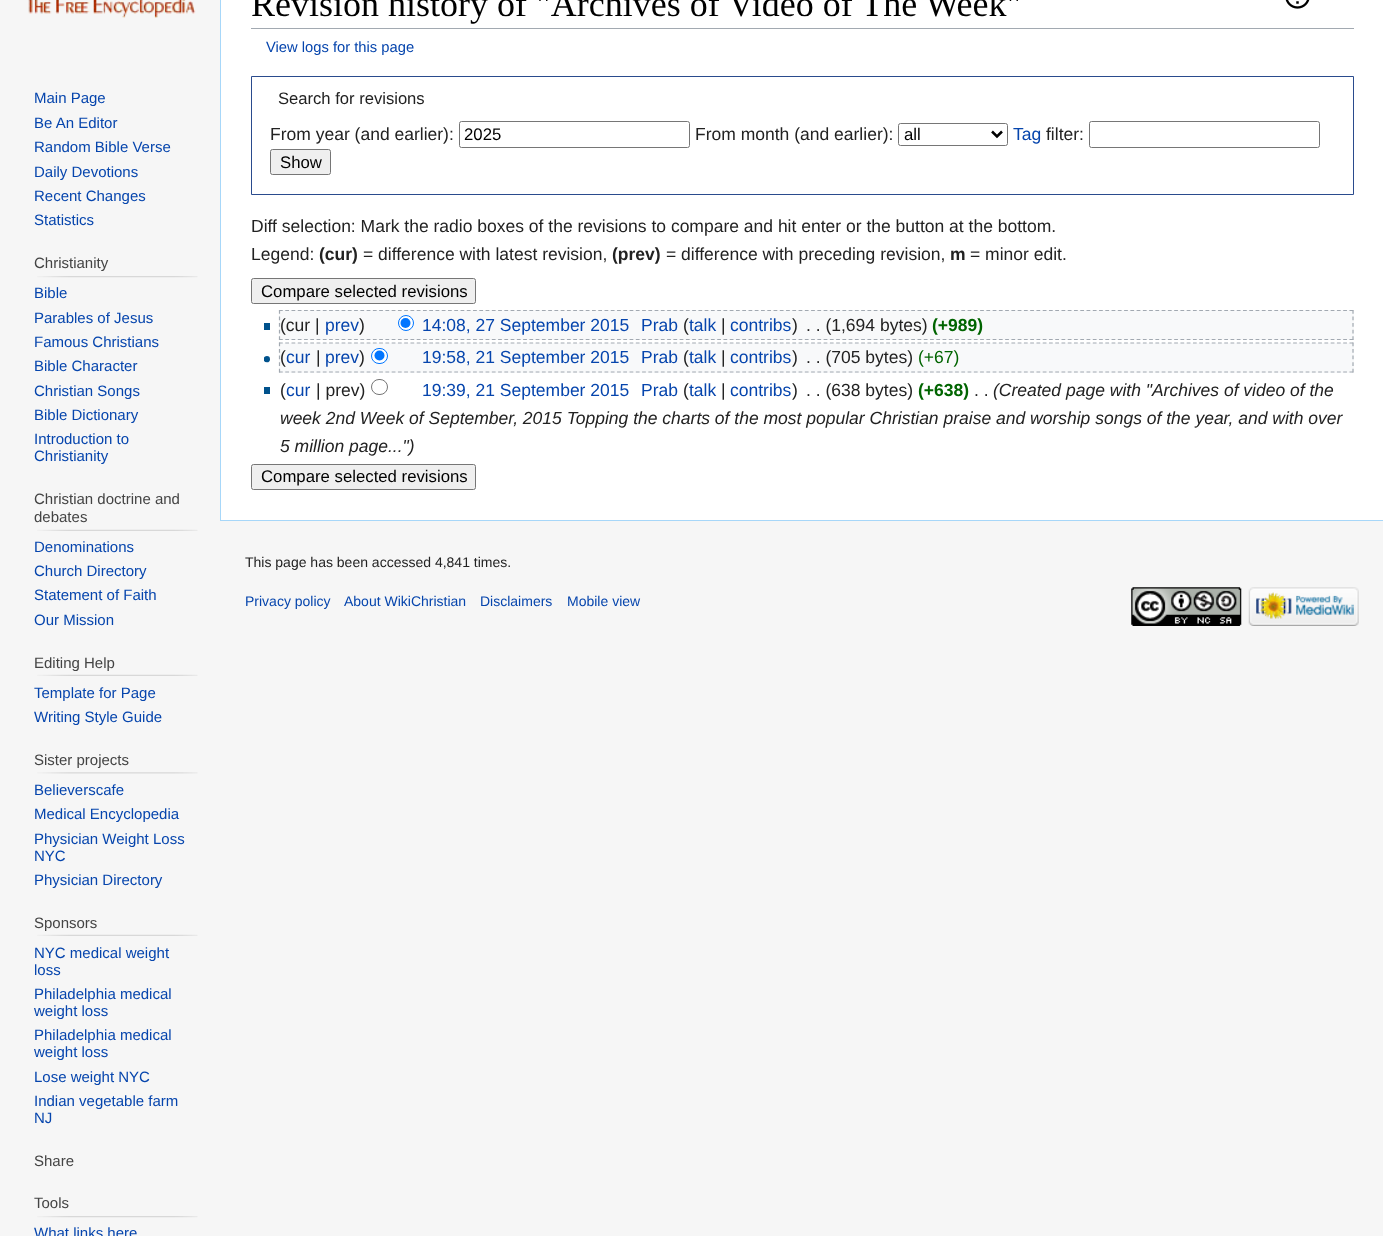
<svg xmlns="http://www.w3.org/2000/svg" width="1383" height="1236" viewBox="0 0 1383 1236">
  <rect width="100%" height="100%" fill="#f6f6f6"/>
  <image x="28" y="0" width="168" height="18" href="img/1.png"/>
  <image x="37" y="276" width="161" height="2" href="img/2.png"/>
  <image x="37" y="529" width="161" height="2" href="img/3.png"/>
  <image x="37" y="674" width="161" height="2" href="img/3.png"/>
  <image x="37" y="772" width="161" height="2" href="img/4.png"/>
  <image x="37" y="934" width="161" height="2" href="img/3.png"/>
  <image x="37" y="1216" width="161" height="2" href="img/2.png"/>
  <path d="M221 0h1162v520H221z" fill="#fff"/>
  <path d="M220 520h1163v1H220z" fill="#a7d7f9"/>
  <path d="M220 0h1v521H220z" fill="#a7d7f9"/>
  <path d="M251 28h1103v1H251z" fill="#a2a9b1"/>
  <image x="1285" y="0" width="25" height="9" href="img/5.png"/>
  <path d="M251.5 76.5h1102v118H251.5z" fill="none" stroke="#2a4b8d"/>
  <rect x="459.5" y="121.5" width="230" height="26" rx="2" fill="none" stroke="#767676"/>
  <rect x="898.5" y="123.5" width="109" height="22" rx="2" fill="none" stroke="#767676"/>
  <path d="M992 131.5L997 136.5L1002 131.5" fill="none" stroke="#000" stroke-width="2.5"/>
  <rect x="1089.5" y="121.5" width="230" height="26" rx="2" fill="none" stroke="#767676"/>
  <rect x="270.5" y="149.5" width="60" height="25" rx="2" fill="#efefef" stroke="#767676"/>
  <rect x="251.5" y="278.5" width="224" height="25" rx="2" fill="#efefef" stroke="#767676"/>
  <path d="M279 310h1075v30H279z" fill="#f8f9fa"/>
  <path d="M279 310.5H1354" fill="none" stroke="#a2a9b1" stroke-width="1.2" stroke-dasharray="3.75 2.51"/>
  <path d="M1353 310V340" fill="none" stroke="#a2a9b1" stroke-width="1.2" stroke-dasharray="3.75 2.81"/>
  <path d="M279 339.5H1354" fill="none" stroke="#a2a9b1" stroke-width="1.2" stroke-dasharray="3.75 2.51"/>
  <path d="M279.5 310V340" fill="none" stroke="#a2a9b1" stroke-width="1.2" stroke-dasharray="3.75 2.81"/>
  <path d="M264 323h6v7H264z" fill="#00528c"/>
  <circle cx="406" cy="323" r="7.5" fill="#fff" stroke="#0075ff"/>
  <circle cx="405.5" cy="323" r="5" fill="#0075ff"/>
  <path d="M279 343h1075v30H279z" fill="#f8f9fa"/>
  <path d="M279 343H1354" fill="none" stroke="#a2a9b1" stroke-width="1.2" stroke-dasharray="3.75 2.51"/>
  <path d="M1353 342.5V372.5" fill="none" stroke="#a2a9b1" stroke-width="1.2" stroke-dasharray="3.75 2.81"/>
  <path d="M279 372H1354" fill="none" stroke="#a2a9b1" stroke-width="1.2" stroke-dasharray="3.75 2.51"/>
  <path d="M279.5 342.5V372.5" fill="none" stroke="#a2a9b1" stroke-width="1.2" stroke-dasharray="3.75 2.81"/>
  <image x="264" y="356" width="6" height="7" href="img/6.png"/>
  <rect x="371.5" y="348.5" width="16" height="15" rx="7.5" fill="#fff" stroke="#0075ff"/>
  <circle cx="379.5" cy="355.5" r="5" fill="#0075ff"/>
  <path d="M264 387h6v7H264z" fill="#00528c"/>
  <rect x="371.5" y="379.5" width="16" height="15" rx="7.5" fill="none" stroke="#767676"/>
  <rect x="251.5" y="464.5" width="224" height="25" rx="2" fill="#efefef" stroke="#767676"/>
  <image x="1131" y="587" width="111" height="39" href="img/7.png"/>
  <image x="1248" y="587" width="111" height="39" href="img/8.png"/>
  <g font-family="Liberation Sans" font-size="15" fill="#0645ad">
    <text x="34" y="103">Main Page</text>
    <text x="34" y="128">Be An Editor</text>
    <text x="34" y="152">Random Bible Verse</text>
    <text x="34" y="177">Daily Devotions</text>
    <text x="34" y="201">Recent Changes</text>
    <text x="34" y="225">Statistics</text>
  </g>
  <text x="34" y="268" font-family="Liberation Sans" font-size="15" fill="#444">Christianity</text>
  <g font-family="Liberation Sans" font-size="15" fill="#0645ad">
    <text x="34" y="298">Bible</text>
    <text x="34" y="323">Parables of Jesus</text>
    <text x="34" y="347">Famous Christians</text>
    <text x="34" y="371">Bible Character</text>
    <text x="34" y="396">Christian Songs</text>
    <text x="34" y="420">Bible Dictionary</text>
    <text x="34" y="444">Introduction to</text>
    <text x="34" y="461">Christianity</text>
  </g>
  <g font-family="Liberation Sans" font-size="15" fill="#444">
    <text x="34" y="504">Christian doctrine and</text>
    <text x="34" y="522">debates</text>
  </g>
  <g font-family="Liberation Sans" font-size="15" fill="#0645ad">
    <text x="34" y="552">Denominations</text>
    <text x="34" y="576">Church Directory</text>
    <text x="34" y="600">Statement of Faith</text>
    <text x="34" y="625">Our Mission</text>
  </g>
  <text x="34" y="668" font-family="Liberation Sans" font-size="15" fill="#444">Editing Help</text>
  <g font-family="Liberation Sans" font-size="15" fill="#0645ad">
    <text x="34" y="698">Template for Page</text>
    <text x="34" y="722">Writing Style Guide</text>
  </g>
  <text x="34" y="765" font-family="Liberation Sans" font-size="15" fill="#444">Sister projects</text>
  <g font-family="Liberation Sans" font-size="15" fill="#0645ad">
    <text x="34" y="795">Believerscafe</text>
    <text x="34" y="819">Medical Encyclopedia</text>
    <text x="34" y="844">Physician Weight Loss</text>
    <text x="34" y="861">NYC</text>
    <text x="34" y="885">Physician Directory</text>
  </g>
  <text x="34" y="928" font-family="Liberation Sans" font-size="15" fill="#444">Sponsors</text>
  <g font-family="Liberation Sans" font-size="15" fill="#0645ad">
    <text x="34" y="958">NYC medical weight</text>
    <text x="34" y="975">loss</text>
    <text x="34" y="999">Philadelphia medical</text>
    <text x="34" y="1016">weight loss</text>
    <text x="34" y="1040">Philadelphia medical</text>
    <text x="34" y="1057">weight loss</text>
    <text x="34" y="1082">Lose weight NYC</text>
    <text x="34" y="1106">Indian vegetable farm</text>
    <text x="34" y="1123">NJ</text>
  </g>
  <g font-family="Liberation Sans" font-size="15" fill="#444">
    <text x="34" y="1166">Share</text>
    <text x="34" y="1208">Tools</text>
  </g>
  <text x="34" y="1238" font-family="Liberation Sans" font-size="15" fill="#0645ad">What links here</text>
  <text x="251" y="16" font-family="Liberation Serif" font-size="36" fill="#000">Revision history of "Archives of Video of The Week"</text>
  <text x="266" y="52" font-family="Liberation Sans" font-size="14.75" fill="#0645ad">View logs for this page</text>
  <text x="278" y="104" font-family="Liberation Sans" font-size="16.6" fill="#222">Search for revisions</text>
  <text x="270" y="140" font-family="Liberation Sans" font-size="17.5" fill="#222">From year (and earlier):</text>
  <text x="464" y="140" font-family="Liberation Sans" font-size="16.75" fill="#000">2025</text>
  <text x="695" y="140" font-family="Liberation Sans" font-size="17.5" fill="#222">From month (and earlier):</text>
  <text x="904" y="140" font-family="Liberation Sans" font-size="16.75" fill="#000">all</text>
  <text x="1013" y="140" font-family="Liberation Sans" font-size="17.5" fill="#0645ad">Tag</text>
  <text x="1046" y="140" font-family="Liberation Sans" font-size="17.5" fill="#222">filter:</text>
  <text x="280" y="168" font-family="Liberation Sans" font-size="16.75" fill="#000">Show</text>
  <g font-family="Liberation Sans" font-size="17.5" fill="#222">
    <text x="251" y="232">Diff selection: Mark the radio boxes of the revisions to compare and hit enter or the button at the bottom.</text>
    <text x="251" y="260">Legend:</text>
  </g>
  <text x="319" y="260" font-family="Liberation Sans" font-size="17.5" font-weight="bold" fill="#222">(cur)</text>
  <text x="363" y="260" font-family="Liberation Sans" font-size="17.5" fill="#222">= difference with latest revision,</text>
  <text x="612" y="260" font-family="Liberation Sans" font-size="17.5" font-weight="bold" fill="#222">(prev)</text>
  <text x="666" y="260" font-family="Liberation Sans" font-size="17.5" fill="#222">= difference with preceding revision,</text>
  <text x="950" y="260" font-family="Liberation Sans" font-size="17.5" font-weight="bold" fill="#222">m</text>
  <text x="970" y="260" font-family="Liberation Sans" font-size="17.5" fill="#222">= minor edit.</text>
  <text x="261" y="297" font-family="Liberation Sans" font-size="16.75" fill="#000">Compare selected revisions</text>
  <text x="280" y="331" font-family="Liberation Sans" font-size="17.5" fill="#222">(cur |</text>
  <text x="325" y="331" font-family="Liberation Sans" font-size="17.5" fill="#0645ad">prev</text>
  <text x="359" y="331" font-family="Liberation Sans" font-size="17.5" fill="#222">)</text>
  <g font-family="Liberation Sans" font-size="17.5" fill="#0645ad">
    <text x="422" y="331">14:08, 27 September 2015</text>
    <text x="641" y="331">Prab</text>
  </g>
  <text x="683" y="331" font-family="Liberation Sans" font-size="17.5" fill="#222">(</text>
  <text x="689" y="331" font-family="Liberation Sans" font-size="17.5" fill="#0645ad">talk</text>
  <text x="721" y="331" font-family="Liberation Sans" font-size="17.5" fill="#222">|</text>
  <text x="730" y="331" font-family="Liberation Sans" font-size="17.5" fill="#0645ad">contribs</text>
  <g font-family="Liberation Sans" font-size="17.5" fill="#222">
    <text x="792" y="331">)</text>
    <text x="806" y="331">. . (1,694 bytes)</text>
  </g>
  <text x="932" y="331" font-family="Liberation Sans" font-size="17.5" font-weight="bold" fill="#006400">(+989)</text>
  <text x="280" y="363" font-family="Liberation Sans" font-size="17.5" fill="#222">(</text>
  <text x="286" y="363" font-family="Liberation Sans" font-size="17.5" fill="#0645ad">cur</text>
  <text x="316" y="363" font-family="Liberation Sans" font-size="17.5" fill="#222">|</text>
  <text x="325" y="363" font-family="Liberation Sans" font-size="17.5" fill="#0645ad">prev</text>
  <text x="359" y="363" font-family="Liberation Sans" font-size="17.5" fill="#222">)</text>
  <g font-family="Liberation Sans" font-size="17.5" fill="#0645ad">
    <text x="422" y="363">19:58, 21 September 2015</text>
    <text x="641" y="363">Prab</text>
  </g>
  <text x="683" y="363" font-family="Liberation Sans" font-size="17.5" fill="#222">(</text>
  <text x="689" y="363" font-family="Liberation Sans" font-size="17.5" fill="#0645ad">talk</text>
  <text x="721" y="363" font-family="Liberation Sans" font-size="17.5" fill="#222">|</text>
  <text x="730" y="363" font-family="Liberation Sans" font-size="17.5" fill="#0645ad">contribs</text>
  <g font-family="Liberation Sans" font-size="17.5" fill="#222">
    <text x="792" y="363">)</text>
    <text x="806" y="363">. . (705 bytes)</text>
  </g>
  <text x="918" y="363" font-family="Liberation Sans" font-size="17.5" fill="#006400">(+67)</text>
  <text x="280" y="396" font-family="Liberation Sans" font-size="17.5" fill="#222">(</text>
  <text x="286" y="396" font-family="Liberation Sans" font-size="17.5" fill="#0645ad">cur</text>
  <text x="316" y="396" font-family="Liberation Sans" font-size="17.5" fill="#222">| prev)</text>
  <g font-family="Liberation Sans" font-size="17.5" fill="#0645ad">
    <text x="422" y="396">19:39, 21 September 2015</text>
    <text x="641" y="396">Prab</text>
  </g>
  <text x="683" y="396" font-family="Liberation Sans" font-size="17.5" fill="#222">(</text>
  <text x="689" y="396" font-family="Liberation Sans" font-size="17.5" fill="#0645ad">talk</text>
  <text x="721" y="396" font-family="Liberation Sans" font-size="17.5" fill="#222">|</text>
  <text x="730" y="396" font-family="Liberation Sans" font-size="17.5" fill="#0645ad">contribs</text>
  <g font-family="Liberation Sans" font-size="17.5" fill="#222">
    <text x="792" y="396">)</text>
    <text x="806" y="396">. . (638 bytes)</text>
  </g>
  <text x="918" y="396" font-family="Liberation Sans" font-size="17.5" font-weight="bold" fill="#006400">(+638)</text>
  <text x="974" y="396" font-family="Liberation Sans" font-size="17.5" fill="#222">. .</text>
  <g font-family="Liberation Sans" font-size="17.5" font-style="italic" fill="#222">
    <text x="993" y="396">(Created page with "Archives of video of the</text>
    <text x="280" y="424">week 2nd Week of September, 2015 Topping the charts of the most popular Christian praise and worship songs of the year, and with over</text>
    <text x="280" y="452">5 million page...")</text>
  </g>
  <text x="261" y="482" font-family="Liberation Sans" font-size="16.75" fill="#000">Compare selected revisions</text>
  <text x="245" y="567" font-family="Liberation Sans" font-size="14" fill="#222">This page has been accessed 4,841 times.</text>
  <g font-family="Liberation Sans" font-size="14" fill="#0645ad">
    <text x="245" y="606">Privacy policy</text>
    <text x="344" y="606">About WikiChristian</text>
    <text x="480" y="606">Disclaimers</text>
    <text x="567" y="606">Mobile view</text>
  </g>
</svg>
